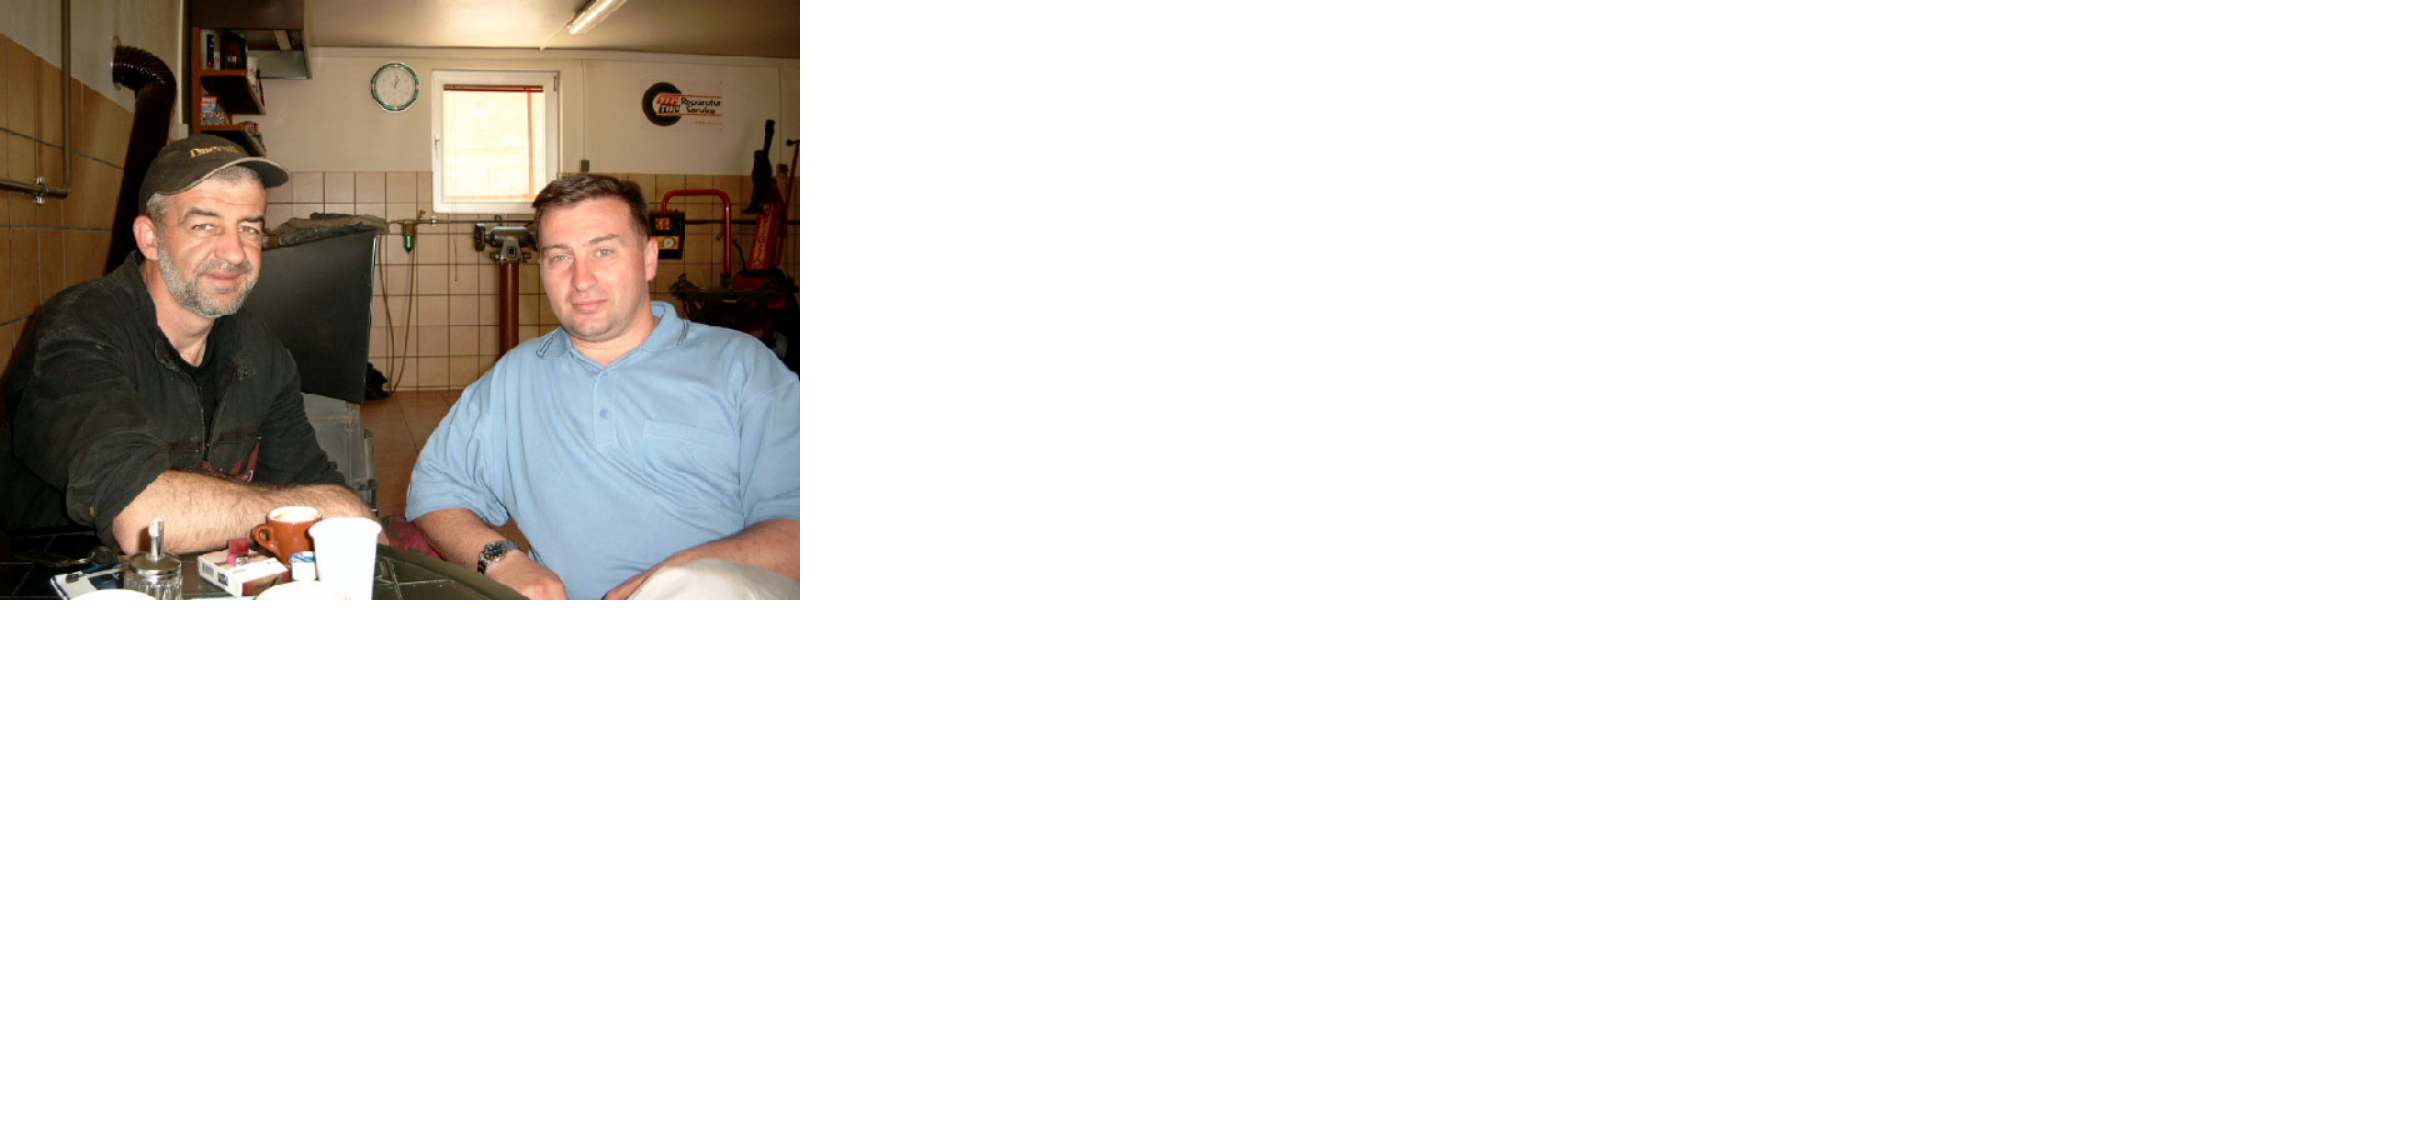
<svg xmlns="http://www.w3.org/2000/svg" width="2420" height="1125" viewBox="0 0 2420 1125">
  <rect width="100%" height="100%" fill="#fff"/>
  <image x="0" y="0" width="800" height="600" href="img/1.png"/>
</svg>
